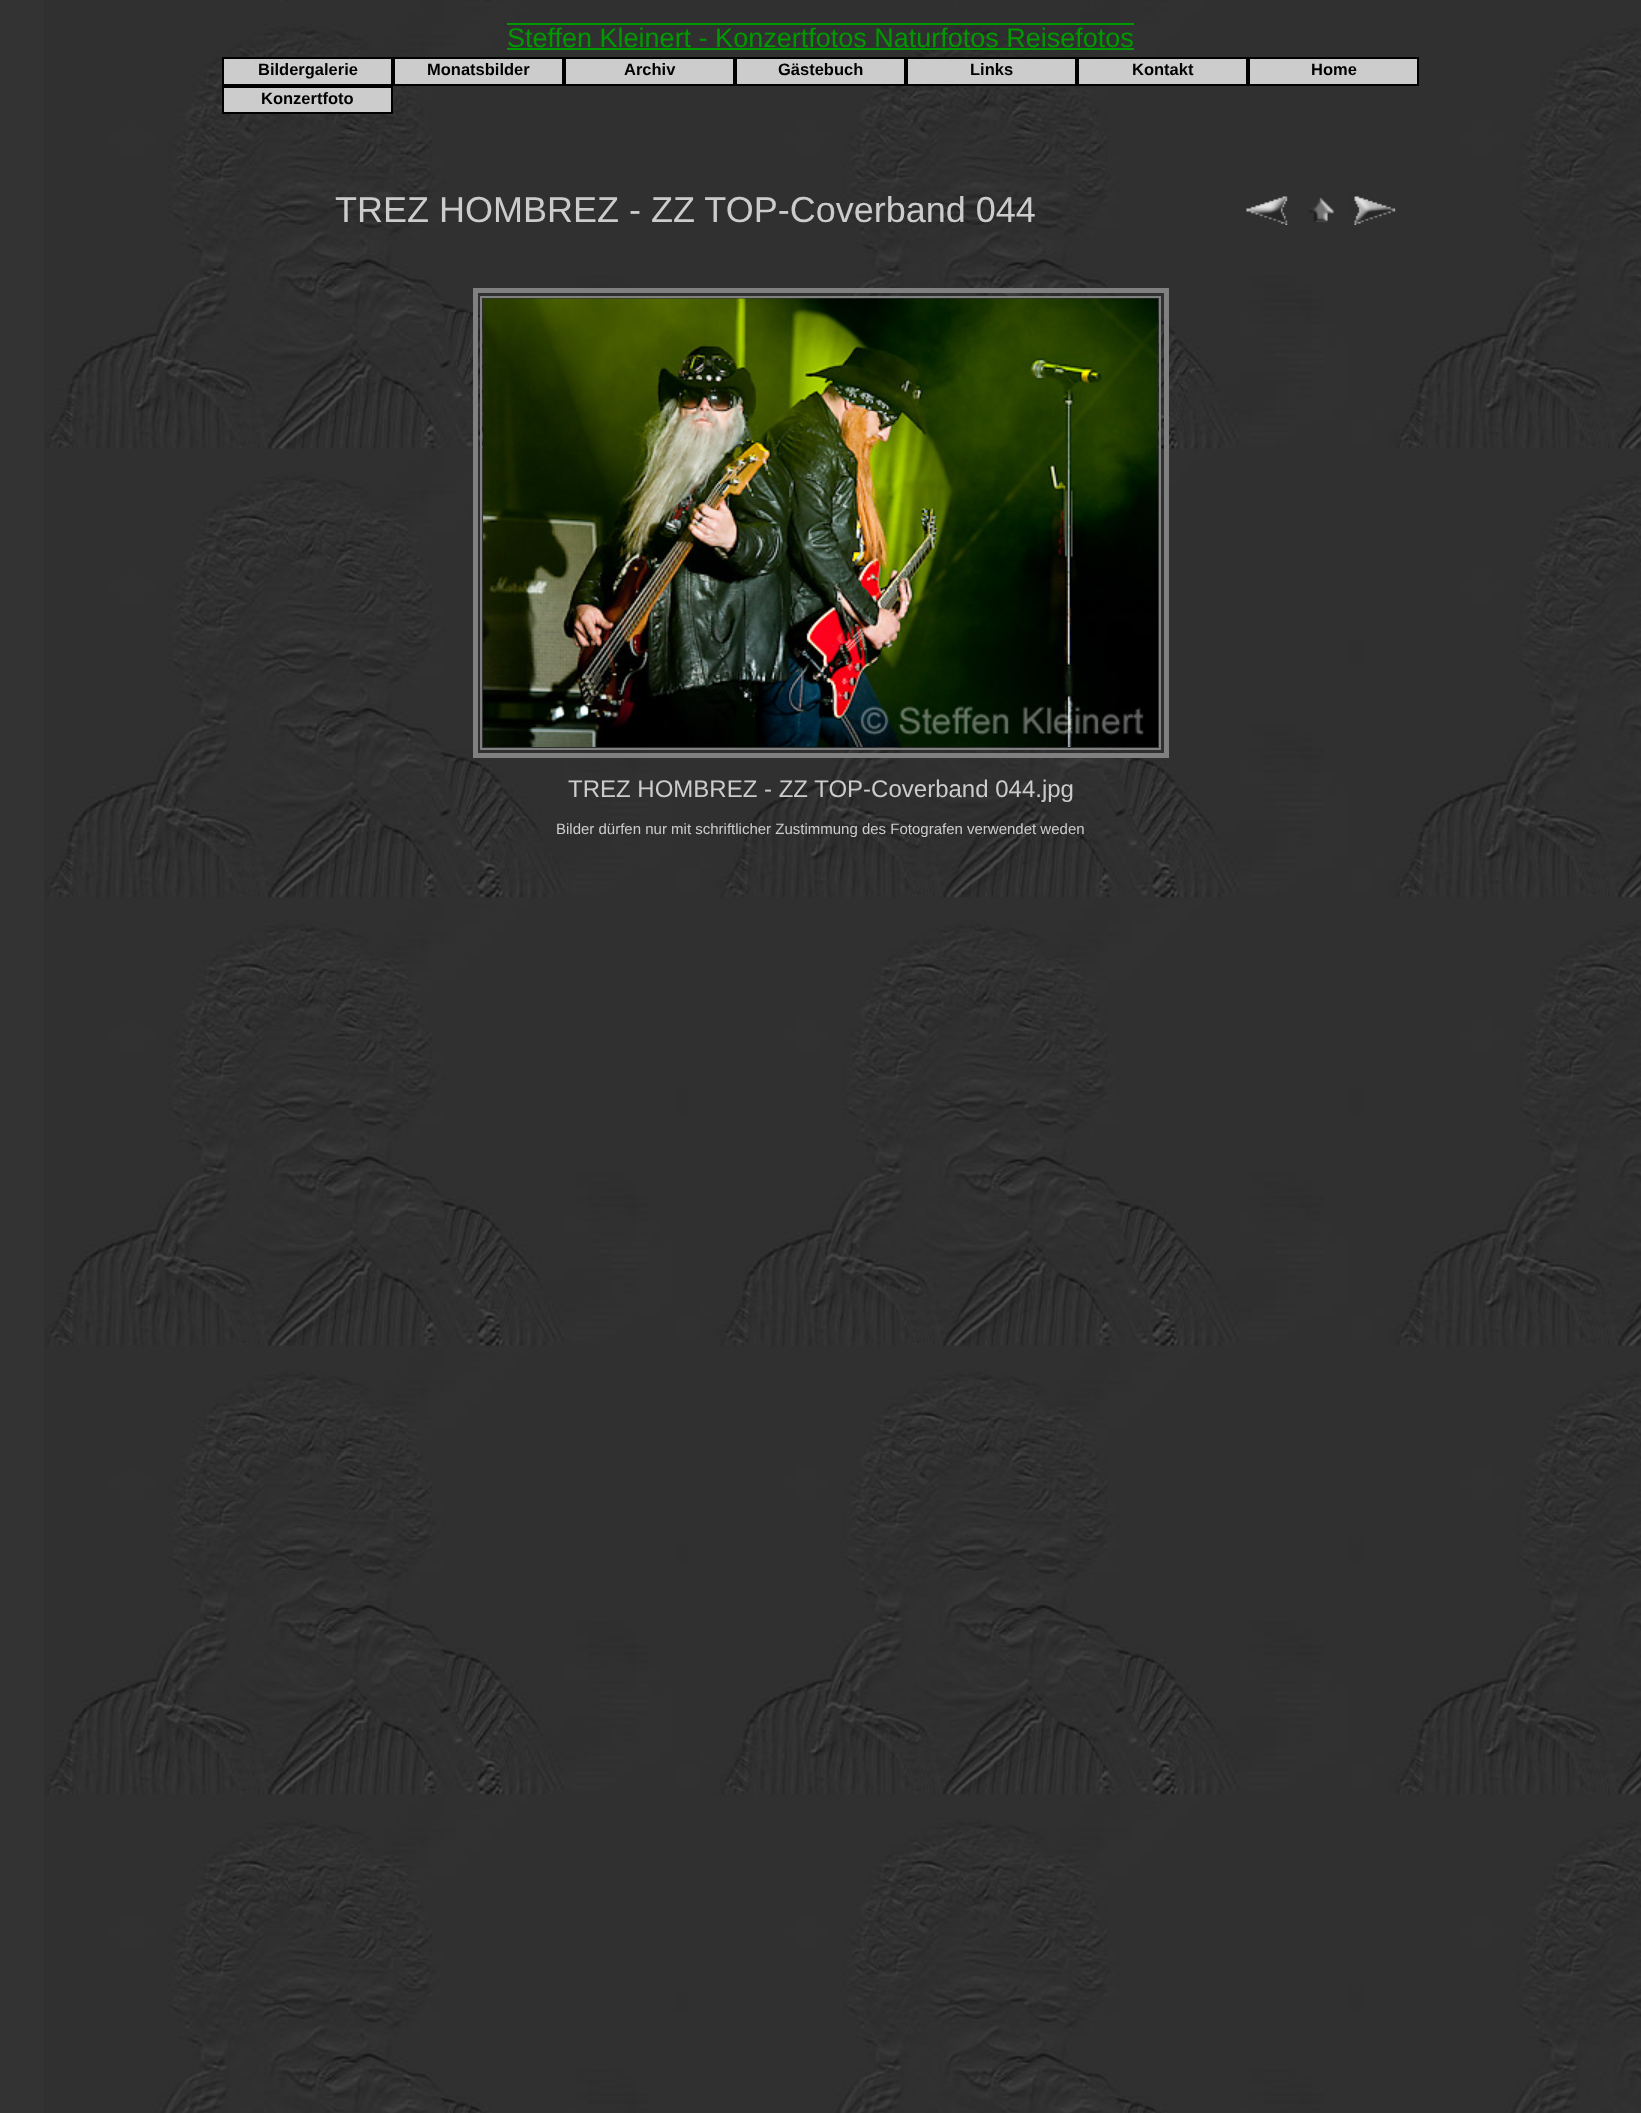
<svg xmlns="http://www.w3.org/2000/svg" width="1641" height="2113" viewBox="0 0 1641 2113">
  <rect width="100%" height="100%" fill="#333"/>
  <image x="44" y="0" width="1597" height="2113" href="img/1.png"/>
  <path d="M507 48h627v2H507z" fill="#090"/>
  <path d="M507 23h627v2H507z" fill="#090"/>
  <path d="M223 58h169v27H223z" fill="#ccc" stroke="#000" stroke-width="2"/>
  <path d="M394 58h169v27H394z" fill="#ccc" stroke="#000" stroke-width="2"/>
  <path d="M565 58h169v27H565z" fill="#ccc" stroke="#000" stroke-width="2"/>
  <path d="M736 58h169v27H736z" fill="#ccc" stroke="#000" stroke-width="2"/>
  <path d="M907 58h169v27H907z" fill="#ccc" stroke="#000" stroke-width="2"/>
  <path d="M1078 58h169v27H1078z" fill="#ccc" stroke="#000" stroke-width="2"/>
  <path d="M1249 58h169v27H1249z" fill="#ccc" stroke="#000" stroke-width="2"/>
  <path d="M223 87h169v26H223z" fill="#ccc" stroke="#000" stroke-width="2"/>
  <image x="1246" y="196" width="42" height="29" href="img/2.png"/>
  <image x="1308" y="197" width="26" height="26" href="img/3.png"/>
  <image x="1354" y="196" width="42" height="29" href="img/4.png"/>
  <path d="M475.5 290.5h691v465H475.5z" fill="none" stroke="#808080" stroke-width="5"/>
  <path d="M481 297h679v452H481z" fill="none" stroke="#808080" stroke-width="2"/>
  <image x="483" y="298" width="675" height="449" href="img/5.png"/>
  <text x="507" y="47" font-family="Liberation Sans" font-size="27" fill="#090">Steffen Kleinert - Konzertfotos Naturfotos Reisefotos</text>
  <g font-family="Liberation Sans" font-size="16.5" font-weight="bold" fill="#000">
    <text x="258" y="75">Bildergalerie</text>
    <text x="427" y="75">Monatsbilder</text>
    <text x="624" y="75">Archiv</text>
    <text x="778" y="75">Gästebuch</text>
    <text x="970" y="75">Links</text>
    <text x="1132" y="75">Kontakt</text>
    <text x="1311" y="75">Home</text>
    <text x="261" y="104">Konzertfoto</text>
  </g>
  <text x="335" y="222" font-family="Liberation Sans" font-size="36" fill="#ccc">TREZ HOMBREZ - ZZ TOP-Coverband 044</text>
  <text x="568" y="797" font-family="Liberation Sans" font-size="24" fill="#ccc">TREZ HOMBREZ - ZZ TOP-Coverband 044.jpg</text>
  <text x="556" y="834" font-family="Liberation Sans" font-size="15" fill="#ccc">Bilder dürfen nur mit schriftlicher Zustimmung des Fotografen verwendet weden</text>
</svg>
